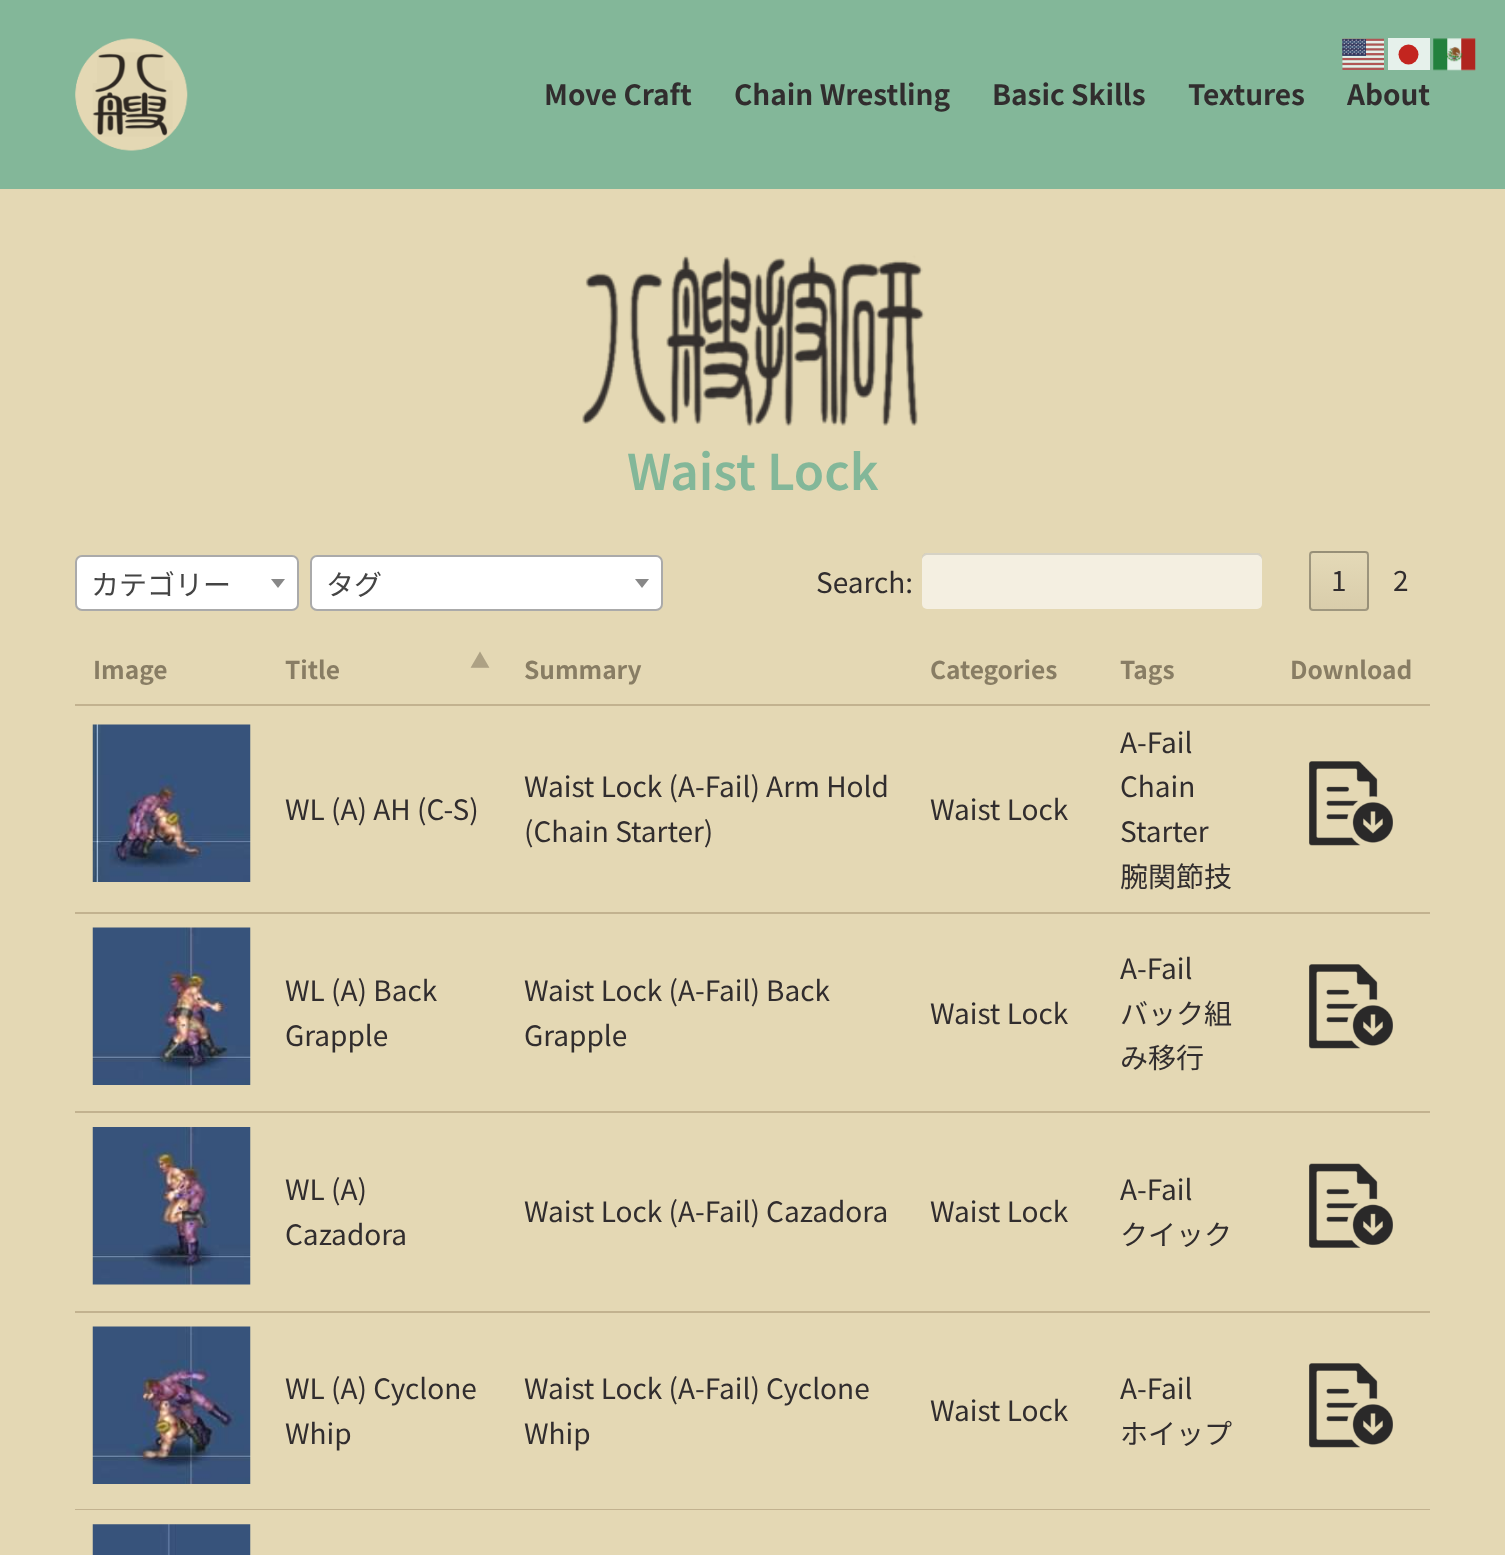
<svg xmlns="http://www.w3.org/2000/svg" width="1505" height="1555" viewBox="0 0 1505 1555">
  <defs>
    <clipPath id="clip1"><rect x="1309" y="551" width="60" height="60" rx="4"/></clipPath>
    <linearGradient id="g1" gradientUnits="userSpaceOnUse" x1="1339" y1="497" x2="1339" y2="553"><stop offset="0" stop-color="#e4d9b7"/><stop offset="1" stop-color="#d9cdab"/></linearGradient>
    <linearGradient id="g2" gradientUnits="userSpaceOnUse" x1="1339" y1="553" x2="1339" y2="609"><stop offset="0" stop-color="#e4d9b7"/><stop offset="1" stop-color="#d9cdab"/></linearGradient>
    <linearGradient id="g3" gradientUnits="userSpaceOnUse" x1="1339" y1="609" x2="1339" y2="665"><stop offset="0" stop-color="#e4d9b7"/><stop offset="1" stop-color="#d9cdab"/></linearGradient>
  </defs>
  <rect width="100%" height="100%" fill="#e4d8b4"/>
  <path d="M0 0h1505v189H0z" fill="#83b799"/>
  <image x="1342" y="38" width="42" height="32" href="img/1.png"/>
  <path d="M1388 38h42v32H1388z" fill="#e6f1eb"/>
  <image x="1433" y="38" width="43" height="33" href="img/2.png"/>
  <circle cx="1408.5" cy="54.5" r="10" fill="#c3251f"/>
  <image x="75" y="38" width="113" height="113" href="img/3.png"/>
  <image x="582" y="255" width="343" height="172" href="img/4.png"/>
  <rect x="76" y="556" width="222" height="54" rx="6" fill="#fff" stroke="#aaa" stroke-width="2"/>
  <path d="M271 579H285L278 588Z" fill="#888"/>
  <rect x="311" y="556" width="351" height="54" rx="6" fill="#fff" stroke="#aaa" stroke-width="2"/>
  <path d="M635 579H649L642 588Z" fill="#888"/>
  <rect x="922" y="553" width="340" height="56" rx="5" fill="#f4efe1"/>
  <path d="M928 555H1256C1259 555 1262 557 1262 560V558C1262 555 1260 553 1257 553H927C924 553 922 555 922 558V560C922 557 925 555 928 555Z" fill="#0000001f"/>
  <g clip-path="url(#clip1)">
    <path d="M1309 551h60v2H1309z" fill="url(#g1)"/>
    <path d="M1309 553h60v56H1309z" fill="url(#g2)"/>
    <path d="M1309 609h60v2H1309z" fill="url(#g3)"/>
  </g>
  <rect x="1310" y="552" width="58" height="58" rx="3" fill="none" stroke="#0000004d" stroke-width="2"/>
  <path d="M75 704h1355v2H75z" fill="#c2b28f"/>
  <path d="M75 912h1355v2H75z" fill="#c2b28f"/>
  <image x="92" y="724" width="159" height="158" href="img/5.png"/>
  <image x="1309" y="761" width="84" height="85" href="img/6.png"/>
  <path d="M75 1111h1355v2H75z" fill="#c2b28f"/>
  <image x="92" y="927" width="159" height="158" href="img/7.png"/>
  <image x="1309" y="964" width="84" height="85" href="img/6.png"/>
  <path d="M75 1311h1355v2H75z" fill="#c2b28f"/>
  <image x="92" y="1127" width="159" height="158" href="img/8.png"/>
  <image x="1309" y="1163" width="84" height="85" href="img/9.png"/>
  <path d="M75 1509h1355v1H75z" fill="#c2b28f"/>
  <image x="92" y="1326" width="159" height="158" href="img/10.png"/>
  <image x="1309" y="1363" width="84" height="85" href="img/6.png"/>
  <image x="92" y="1524" width="159" height="31" href="img/11.png"/>
  <g font-family="Noto Sans JP" font-size="28" font-weight="bold" fill="#312d2e">
    <text x="544" y="105">Move Craft</text>
    <text x="734" y="105">Chain Wrestling</text>
    <text x="992" y="105">Basic Skills</text>
    <text x="1188" y="105">Textures</text>
    <text x="1347" y="105">About</text>
  </g>
  <text x="627" y="490" font-family="Noto Sans JP" font-size="49" font-weight="600" fill="#83b799">Waist Lock</text>
  <g font-family="Noto Sans JP" font-size="28" fill="#444">
    <text x="91" y="595">カテゴリー</text>
    <text x="326" y="595">タグ</text>
  </g>
  <g font-family="Noto Sans JP" font-size="28" fill="#312d2e">
    <text x="816" y="593">Search:</text>
    <text x="1331" y="591">1</text>
    <text x="1393" y="591">2</text>
  </g>
  <g font-family="Noto Sans JP" font-size="24.5" font-weight="bold" fill="#887d64">
    <text x="93" y="679">Image</text>
    <text x="285" y="679">Title</text>
  </g>
  <text x="470" y="668" font-family="Noto Sans JP" font-size="20" font-weight="bold" fill="#ada184">▲</text>
  <g font-family="Noto Sans JP" font-size="24.5" font-weight="bold" fill="#887d64">
    <text x="524" y="679">Summary</text>
    <text x="930" y="679">Categories</text>
    <text x="1120" y="679">Tags</text>
    <text x="1290" y="679">Download</text>
  </g>
  <g font-family="Noto Sans JP" font-size="28" fill="#312d2e">
    <text x="285" y="820">WL (A) AH (C-S)</text>
    <text x="524" y="797">Waist Lock (A-Fail) Arm Hold</text>
    <text x="524" y="842">(Chain Starter)</text>
    <text x="930" y="820">Waist Lock</text>
    <text x="1120" y="753">A-Fail</text>
    <text x="1120" y="797">Chain</text>
    <text x="1120" y="842">Starter</text>
    <text x="1120" y="887">腕関節技</text>
    <text x="285" y="1001">WL (A) Back</text>
    <text x="285" y="1046">Grapple</text>
    <text x="524" y="1001">Waist Lock (A-Fail) Back</text>
    <text x="524" y="1046">Grapple</text>
    <text x="930" y="1024">Waist Lock</text>
    <text x="1120" y="979">A-Fail</text>
    <text x="1120" y="1024">バック組</text>
    <text x="1120" y="1068">み移行</text>
    <text x="285" y="1200">WL (A)</text>
    <text x="285" y="1245">Cazadora</text>
    <text x="524" y="1222">Waist Lock (A-Fail) Cazadora</text>
    <text x="930" y="1222">Waist Lock</text>
    <text x="1120" y="1200">A-Fail</text>
    <text x="1120" y="1245">クイック</text>
    <text x="285" y="1399">WL (A) Cyclone</text>
    <text x="285" y="1444">Whip</text>
    <text x="524" y="1399">Waist Lock (A-Fail) Cyclone</text>
    <text x="524" y="1444">Whip</text>
    <text x="930" y="1421">Waist Lock</text>
    <text x="1120" y="1399">A-Fail</text>
    <text x="1120" y="1444">ホイップ</text>
  </g>
</svg>
